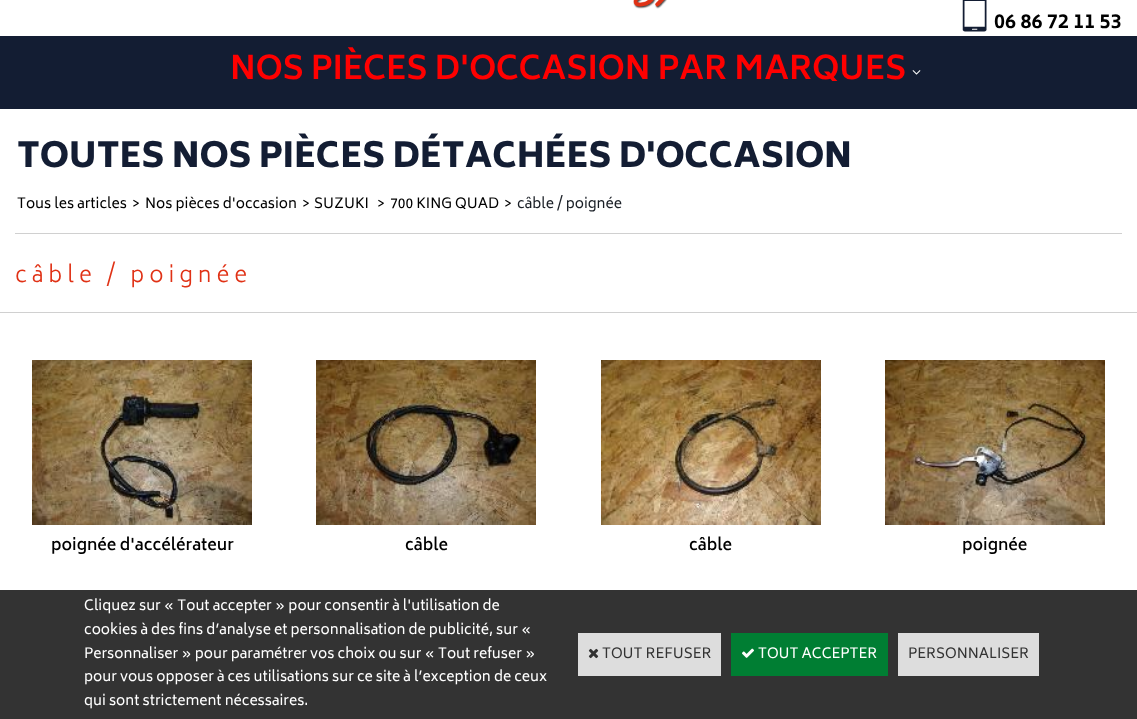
<svg xmlns="http://www.w3.org/2000/svg" width="1137" height="719" viewBox="0 0 1137 719">
  <rect width="100%" height="100%" fill="#fff"/>
  <image x="633" y="0" width="34" height="9" href="img/1.png"/>
  <image x="962" y="0" width="25" height="32" href="img/2.png"/>
  <path d="M0 36h1137v73H0z" fill="#131d33"/>
  <image x="912" y="70" width="9" height="5" href="img/3.png"/>
  <path d="M15 233h1107v1H15z" fill="#d0d0d0"/>
  <path d="M0 312h1137v1H0z" fill="#d0d0d0"/>
  <image x="32" y="360" width="220" height="165" href="img/4.png"/>
  <image x="316" y="360" width="220" height="165" href="img/5.png"/>
  <image x="601" y="360" width="220" height="165" href="img/6.png"/>
  <image x="885" y="360" width="220" height="165" href="img/7.png"/>
  <path d="M0 590h1137v129H0z" fill="#333"/>
  <path d="M578 633h143v43H578z" fill="#ddd"/>
  <image x="588" y="648" width="11" height="11" href="img/8.png"/>
  <path d="M731 633h157v43H731z" fill="#007e33"/>
  <image x="742" y="648" width="12" height="10" href="img/9.png"/>
  <path d="M898 633h141v43H898z" fill="#ddd"/>
  <text x="994" y="28" font-family="Biryani" font-size="20" font-weight="bold" fill="#000">06 86 72 11 53</text>
  <text x="230" y="79" font-family="Biryani" font-size="32" font-weight="bold" fill="#f00">NOS PIÈCES D'OCCASION PAR MARQUES</text>
  <text x="17" y="167" font-family="Biryani" font-size="34" font-weight="900" fill="#131d33">TOUTES NOS PIÈCES DÉTACHÉES D'OCCASION</text>
  <g font-family="Biryani" font-size="14" fill="#000">
    <text x="17" y="208">Tous les articles</text>
    <text x="132" y="208">&gt;</text>
    <text x="145" y="208">Nos pièces d'occasion</text>
    <text x="302" y="208">&gt;</text>
    <text x="314" y="208">SUZUKI</text>
    <text x="377" y="208">&gt;</text>
    <text x="390" y="208">700 KING QUAD</text>
    <text x="504" y="208">&gt;</text>
  </g>
  <text x="517" y="208" font-family="Biryani" font-size="14" fill="#1a1f26">câble / poignée</text>
  <text x="15" y="282" font-family="Biryani" font-size="22" font-weight="300" letter-spacing="5" fill="#e03115">câble / poignée</text>
  <g font-family="Biryani" font-size="16" font-weight="600" fill="#000">
    <text x="51" y="550">poignée d'accélérateur</text>
    <text x="405" y="550">câble</text>
    <text x="689" y="550">câble</text>
    <text x="962" y="550">poignée</text>
  </g>
  <g font-family="Biryani" font-size="14" fill="#fff">
    <text x="84" y="610">Cliquez sur « Tout accepter » pour consentir à l'utilisation de</text>
    <text x="84" y="634">cookies à des fins d’analyse et personnalisation de publicité, sur «</text>
    <text x="84" y="658">Personnaliser » pour paramétrer vos choix ou sur « Tout refuser »</text>
    <text x="84" y="681">pour vous opposer à ces utilisations sur ce site à l’exception de ceux</text>
    <text x="84" y="705">qui sont strictement nécessaires.</text>
  </g>
  <text x="602" y="658" font-family="Biryani" font-size="14" fill="#333">TOUT REFUSER</text>
  <text x="758" y="658" font-family="Biryani" font-size="14" fill="#fff">TOUT ACCEPTER</text>
  <text x="908" y="658" font-family="Biryani" font-size="14" fill="#333">PERSONNALISER</text>
</svg>
